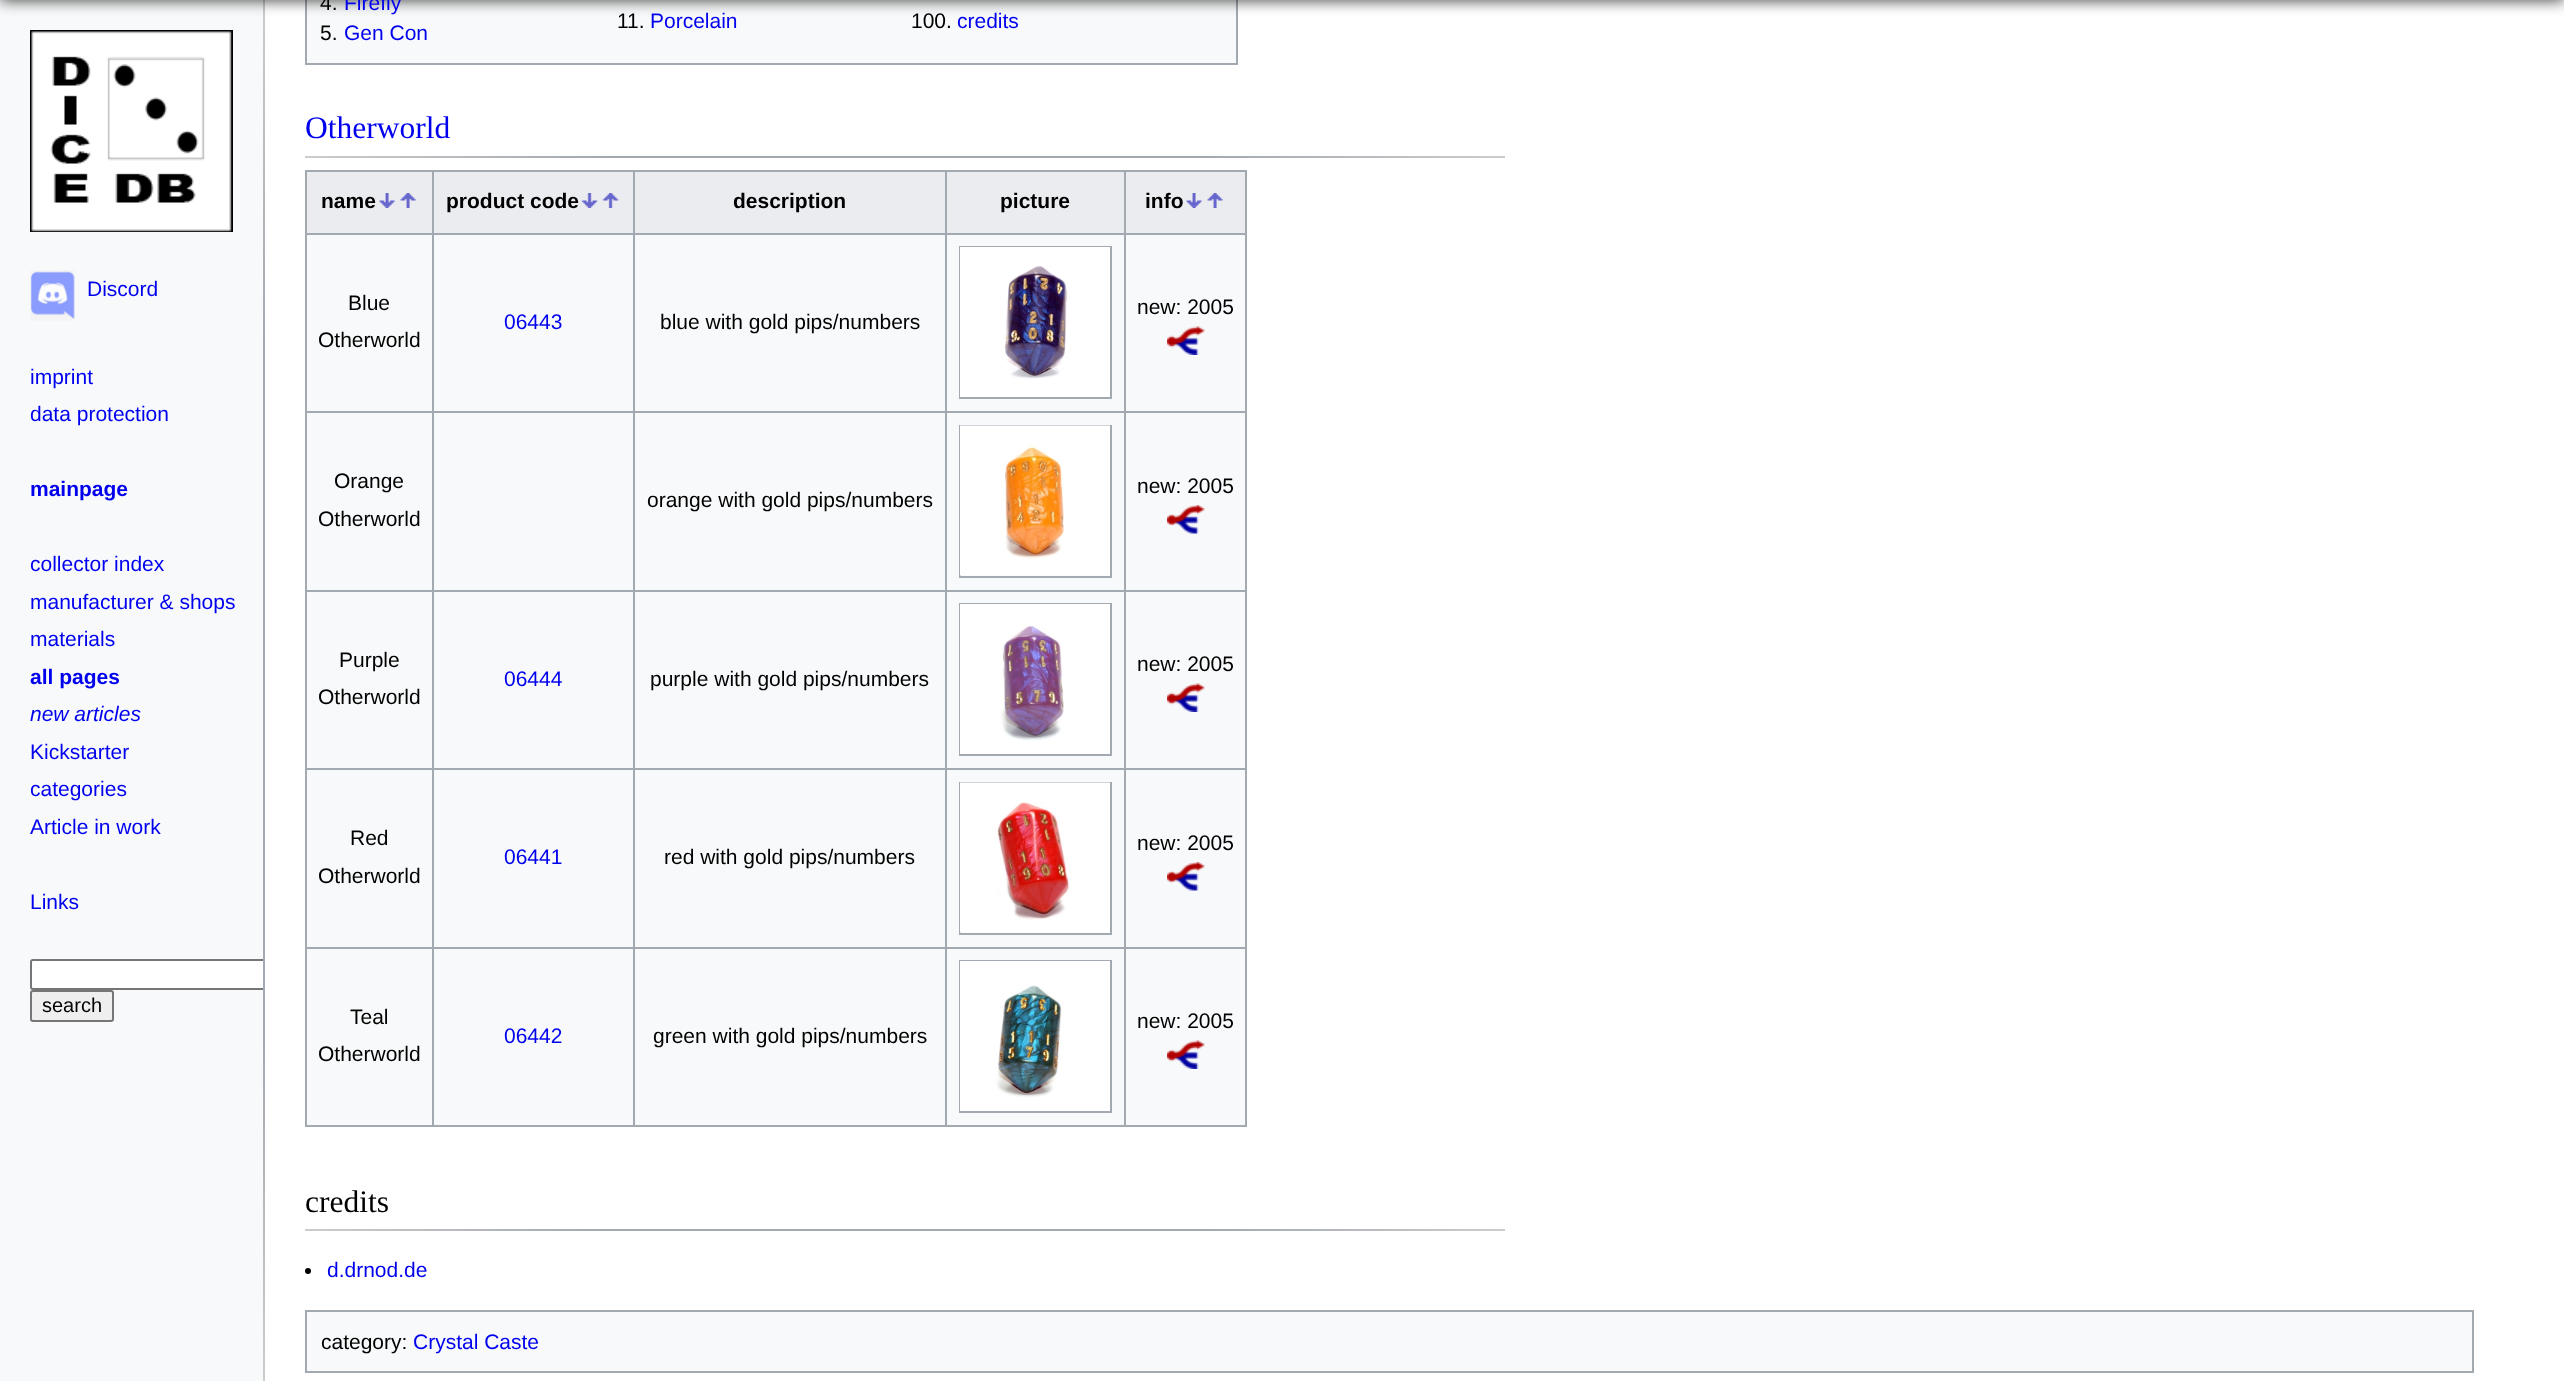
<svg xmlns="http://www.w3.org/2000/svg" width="2564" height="1381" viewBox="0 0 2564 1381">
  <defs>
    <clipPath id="clip1"><path d="M0 0h263v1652H0z"/></clipPath>
    <linearGradient id="g1" gradientUnits="userSpaceOnUse" x1="263" y1="0" x2="263" y2="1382"><stop offset="0" stop-color="#ccc"/><stop offset="0.25" stop-color="#a2a9b1"/><stop offset="0.75" stop-color="#a2a9b1"/><stop offset="1" stop-color="#ccc"/></linearGradient>
    <linearGradient id="g2" gradientUnits="userSpaceOnUse" x1="305" y1="157" x2="1505" y2="157"><stop offset="0" stop-color="#ccc"/><stop offset="0.25" stop-color="#a2a9b1"/><stop offset="0.75" stop-color="#a2a9b1"/><stop offset="1" stop-color="#ccc"/></linearGradient>
    <linearGradient id="g3" gradientUnits="userSpaceOnUse" x1="305" y1="1229" x2="1505" y2="1229"><stop offset="0" stop-color="#ccc"/><stop offset="0.25" stop-color="#a2a9b1"/><stop offset="0.75" stop-color="#a2a9b1"/><stop offset="1" stop-color="#ccc"/></linearGradient>
  </defs>
  <rect width="100%" height="100%" fill="#fff"/>
  <path d="M0 0h263v1381H0z" fill="#f8f9fa"/>
  <path d="M33 959H263V990H33C31.5 990 30 988.5 30 987V962C30 960.5 31.5 959 33 959Z" fill="#fff"/>
  <g clip-path="url(#clip1)">
    <rect x="31" y="960" width="240" height="29" rx="2" fill="none" stroke="#767676" stroke-width="2"/>
  </g>
  <path d="M263 0h2v1381H263z" fill="url(#g1)"/>
  <path d="M306 -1h931v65H306z" fill="#f8f9fa" stroke="#a2a9b1" stroke-width="2"/>
  <path d="M0 -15h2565v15H0z" fill="#000000cc" filter="blur(7.5px)"/>
  <image x="30" y="30" width="203" height="202" href="img/1.png"/>
  <image x="30" y="270" width="45" height="51" href="img/2.png"/>
  <rect x="31" y="991" width="82" height="30" rx="2" fill="#efefef" stroke="#767676" stroke-width="2"/>
  <path d="M305 156h1200v2H305z" fill="url(#g2)"/>
  <path d="M307 172h125v61H307z" fill="#eaecf0"/>
  <path d="M1124 170h123v2H1124z" fill="#a2a9b1"/>
  <path d="M1124 233h123v2H1124z" fill="#a2a9b1"/>
  <path d="M1124 411h123v2H1124z" fill="#a2a9b1"/>
  <path d="M1124 590h123v2H1124z" fill="#a2a9b1"/>
  <path d="M1124 768h123v2H1124z" fill="#a2a9b1"/>
  <path d="M1124 947h123v2H1124z" fill="#a2a9b1"/>
  <path d="M1245 947h2v180H1245z" fill="#a2a9b1"/>
  <path d="M1124 1125h123v2H1124z" fill="#a2a9b1"/>
  <path d="M1124 947h2v180H1124z" fill="#a2a9b1"/>
  <path d="M945 947h180v2H945z" fill="#a2a9b1"/>
  <path d="M1124 768h2v180H1124z" fill="#a2a9b1"/>
  <path d="M945 768h180v2H945z" fill="#a2a9b1"/>
  <path d="M1124 590h2v180H1124z" fill="#a2a9b1"/>
  <path d="M945 590h180v2H945z" fill="#a2a9b1"/>
  <path d="M1124 411h2v180H1124z" fill="#a2a9b1"/>
  <path d="M945 411h180v2H945z" fill="#a2a9b1"/>
  <path d="M1124 233h2v180H1124z" fill="#a2a9b1"/>
  <path d="M945 233h180v2H945z" fill="#a2a9b1"/>
  <path d="M1124 170h2v64H1124z" fill="#a2a9b1"/>
  <path d="M945 170h180v2H945z" fill="#a2a9b1"/>
  <path d="M945 1125h180v2H945z" fill="#a2a9b1"/>
  <path d="M945 947h2v180H945z" fill="#a2a9b1"/>
  <path d="M633 947h314v2H633z" fill="#a2a9b1"/>
  <path d="M945 768h2v180H945z" fill="#a2a9b1"/>
  <path d="M633 768h314v2H633z" fill="#a2a9b1"/>
  <path d="M945 590h2v180H945z" fill="#a2a9b1"/>
  <path d="M633 590h314v2H633z" fill="#a2a9b1"/>
  <path d="M945 411h2v180H945z" fill="#a2a9b1"/>
  <path d="M633 411h314v2H633z" fill="#a2a9b1"/>
  <path d="M945 233h2v180H945z" fill="#a2a9b1"/>
  <path d="M633 233h314v2H633z" fill="#a2a9b1"/>
  <path d="M945 170h2v64H945z" fill="#a2a9b1"/>
  <path d="M633 170h314v2H633z" fill="#a2a9b1"/>
  <path d="M633 1125h314v2H633z" fill="#a2a9b1"/>
  <path d="M633 947h2v180H633z" fill="#a2a9b1"/>
  <path d="M432 947h203v2H432z" fill="#a2a9b1"/>
  <path d="M633 768h2v180H633z" fill="#a2a9b1"/>
  <path d="M432 768h203v2H432z" fill="#a2a9b1"/>
  <path d="M633 590h2v180H633z" fill="#a2a9b1"/>
  <path d="M432 590h203v2H432z" fill="#a2a9b1"/>
  <path d="M633 411h2v180H633z" fill="#a2a9b1"/>
  <path d="M432 411h203v2H432z" fill="#a2a9b1"/>
  <path d="M633 233h2v180H633z" fill="#a2a9b1"/>
  <path d="M432 233h203v2H432z" fill="#a2a9b1"/>
  <path d="M633 170h2v64H633z" fill="#a2a9b1"/>
  <path d="M432 170h203v2H432z" fill="#a2a9b1"/>
  <path d="M432 1125h203v2H432z" fill="#a2a9b1"/>
  <path d="M432 947h2v180H432z" fill="#a2a9b1"/>
  <path d="M305 947h129v2H305z" fill="#a2a9b1"/>
  <path d="M432 768h2v180H432z" fill="#a2a9b1"/>
  <path d="M305 768h129v2H305z" fill="#a2a9b1"/>
  <path d="M432 590h2v180H432z" fill="#a2a9b1"/>
  <path d="M305 590h129v2H305z" fill="#a2a9b1"/>
  <path d="M432 411h2v180H432z" fill="#a2a9b1"/>
  <path d="M305 411h129v2H305z" fill="#a2a9b1"/>
  <path d="M432 233h2v180H432z" fill="#a2a9b1"/>
  <path d="M305 233h129v2H305z" fill="#a2a9b1"/>
  <path d="M432 170h2v64H432z" fill="#a2a9b1"/>
  <path d="M305 170h129v2H305z" fill="#a2a9b1"/>
  <path d="M305 1125h129v2H305z" fill="#a2a9b1"/>
  <path d="M305 947h2v180H305z" fill="#a2a9b1"/>
  <path d="M305 768h2v180H305z" fill="#a2a9b1"/>
  <path d="M305 590h2v180H305z" fill="#a2a9b1"/>
  <path d="M305 411h2v180H305z" fill="#a2a9b1"/>
  <path d="M305 233h2v180H305z" fill="#a2a9b1"/>
  <path d="M305 170h2v64H305z" fill="#a2a9b1"/>
  <image x="379" y="193" width="16" height="15" href="img/3.png"/>
  <image x="400" y="193" width="16" height="15" href="img/4.png"/>
  <path d="M434 172h199v61H434z" fill="#eaecf0"/>
  <image x="581" y="193" width="17" height="15" href="img/5.png"/>
  <image x="602" y="193" width="17" height="15" href="img/6.png"/>
  <path d="M635 172h310v61H635z" fill="#eaecf0"/>
  <path d="M947 172h177v61H947z" fill="#eaecf0"/>
  <path d="M1126 172h119v61H1126z" fill="#eaecf0"/>
  <path d="M1245 768h2v180H1245z" fill="#a2a9b1"/>
  <path d="M1245 590h2v180H1245z" fill="#a2a9b1"/>
  <path d="M1245 411h2v180H1245z" fill="#a2a9b1"/>
  <path d="M1245 233h2v180H1245z" fill="#a2a9b1"/>
  <path d="M1245 170h2v64H1245z" fill="#a2a9b1"/>
  <image x="1186" y="193" width="16" height="15" href="img/3.png"/>
  <image x="1207" y="193" width="16" height="15" href="img/4.png"/>
  <path d="M307 235h125v176H307z" fill="#f8f9fa"/>
  <path d="M947 235h177v176H947z" fill="#f8f9fa"/>
  <path d="M960 247h151v151H960z" fill="none" stroke="#a2a9b1" stroke-width="2"/>
  <image x="960" y="247" width="150" height="150" href="img/7.png"/>
  <path d="M1126 235h119v176H1126z" fill="#f8f9fa"/>
  <image x="1167" y="326" width="38" height="29" href="img/8.png"/>
  <path d="M434 235h199v176H434z" fill="#f8f9fa"/>
  <path d="M635 235h310v176H635z" fill="#f8f9fa"/>
  <path d="M307 413h125v177H307z" fill="#f8f9fa"/>
  <path d="M434 413h199v177H434z" fill="#f8f9fa"/>
  <path d="M947 413h177v177H947z" fill="#f8f9fa"/>
  <path d="M960 426h151v151H960z" fill="none" stroke="#a2a9b1" stroke-width="2"/>
  <image x="960" y="425" width="150" height="151" href="img/9.png"/>
  <path d="M1126 413h119v177H1126z" fill="#f8f9fa"/>
  <image x="1167" y="505" width="38" height="29" href="img/10.png"/>
  <path d="M635 413h310v177H635z" fill="#f8f9fa"/>
  <path d="M307 592h125v176H307z" fill="#f8f9fa"/>
  <path d="M947 592h177v176H947z" fill="#f8f9fa"/>
  <path d="M960 604h151v151H960z" fill="none" stroke="#a2a9b1" stroke-width="2"/>
  <image x="960" y="604" width="150" height="150" href="img/11.png"/>
  <path d="M1126 592h119v176H1126z" fill="#f8f9fa"/>
  <image x="1167" y="683" width="38" height="29" href="img/8.png"/>
  <path d="M434 592h199v176H434z" fill="#f8f9fa"/>
  <path d="M635 592h310v176H635z" fill="#f8f9fa"/>
  <path d="M307 770h125v177H307z" fill="#f8f9fa"/>
  <path d="M947 770h177v177H947z" fill="#f8f9fa"/>
  <path d="M960 783h151v151H960z" fill="none" stroke="#a2a9b1" stroke-width="2"/>
  <image x="960" y="782" width="150" height="151" href="img/12.png"/>
  <path d="M1126 770h119v177H1126z" fill="#f8f9fa"/>
  <image x="1167" y="862" width="38" height="29" href="img/10.png"/>
  <path d="M434 770h199v177H434z" fill="#f8f9fa"/>
  <path d="M635 770h310v177H635z" fill="#f8f9fa"/>
  <path d="M307 949h125v176H307z" fill="#f8f9fa"/>
  <path d="M947 949h177v176H947z" fill="#f8f9fa"/>
  <path d="M960 961h151v151H960z" fill="none" stroke="#a2a9b1" stroke-width="2"/>
  <image x="960" y="961" width="150" height="150" href="img/13.png"/>
  <path d="M1126 949h119v176H1126z" fill="#f8f9fa"/>
  <image x="1167" y="1040" width="38" height="29" href="img/8.png"/>
  <path d="M434 949h199v176H434z" fill="#f8f9fa"/>
  <path d="M635 949h310v176H635z" fill="#f8f9fa"/>
  <path d="M305 1229h1200v2H305z" fill="url(#g3)"/>
  <circle cx="308" cy="1271" r="3" fill="#000"/>
  <path d="M306 1311h2167v61H306z" fill="#f8f9fa" stroke="#a2a9b1" stroke-width="2"/>
  <g font-family="Liberation Sans" font-size="21" fill="#00e">
    <text x="87" y="296">Discord</text>
    <text x="30" y="384">imprint</text>
    <text x="30" y="421">data protection</text>
  </g>
  <text x="30" y="496" font-family="Liberation Sans" font-size="21" font-weight="bold" fill="#00e">mainpage</text>
  <g font-family="Liberation Sans" font-size="21" fill="#00e">
    <text x="30" y="571">collector index</text>
    <text x="30" y="609">manufacturer &amp; shops</text>
    <text x="30" y="646">materials</text>
  </g>
  <text x="30" y="684" font-family="Liberation Sans" font-size="21" font-weight="bold" fill="#00e">all pages</text>
  <text x="30" y="721" font-family="Liberation Sans" font-size="21" font-style="italic" fill="#00e">new articles</text>
  <g font-family="Liberation Sans" font-size="21" fill="#00e">
    <text x="30" y="759">Kickstarter</text>
    <text x="30" y="796">categories</text>
    <text x="30" y="834">Article in work</text>
    <text x="30" y="909">Links</text>
  </g>
  <text x="42" y="1012" font-family="Liberation Sans" font-size="20" fill="#000">search</text>
  <text x="320" y="10" font-family="Liberation Sans" font-size="21" fill="#000">4.</text>
  <text x="344" y="10" font-family="Liberation Sans" font-size="21" fill="#00e">Firefly</text>
  <text x="617" y="28" font-family="Liberation Sans" font-size="21" fill="#000">11.</text>
  <text x="650" y="28" font-family="Liberation Sans" font-size="21" fill="#00e">Porcelain</text>
  <text x="911" y="28" font-family="Liberation Sans" font-size="21" fill="#000">100.</text>
  <text x="957" y="28" font-family="Liberation Sans" font-size="21" fill="#00e">credits</text>
  <text x="320" y="40" font-family="Liberation Sans" font-size="21" fill="#000">5.</text>
  <text x="344" y="40" font-family="Liberation Sans" font-size="21" fill="#00e">Gen Con</text>
  <text x="305" y="138" font-family="Liberation Serif" font-size="31.5" fill="#00e">Otherworld</text>
  <g font-family="Liberation Sans" font-size="21" font-weight="bold" fill="#000">
    <text x="321" y="208">name</text>
    <text x="446" y="208">product code</text>
    <text x="733" y="208">description</text>
    <text x="1000" y="208">picture</text>
    <text x="1145" y="208">info</text>
  </g>
  <g font-family="Liberation Sans" font-size="21" fill="#000">
    <text x="348" y="310">Blue</text>
    <text x="318" y="347">Otherworld</text>
    <text x="1137" y="314">new: 2005</text>
  </g>
  <text x="504" y="329" font-family="Liberation Sans" font-size="21" fill="#00e">06443</text>
  <g font-family="Liberation Sans" font-size="21" fill="#000">
    <text x="660" y="329">blue with gold pips/numbers</text>
    <text x="334" y="488">Orange</text>
    <text x="318" y="526">Otherworld</text>
    <text x="1137" y="493">new: 2005</text>
    <text x="647" y="507">orange with gold pips/numbers</text>
    <text x="339" y="667">Purple</text>
    <text x="318" y="704">Otherworld</text>
    <text x="1137" y="671">new: 2005</text>
  </g>
  <text x="504" y="686" font-family="Liberation Sans" font-size="21" fill="#00e">06444</text>
  <g font-family="Liberation Sans" font-size="21" fill="#000">
    <text x="650" y="686">purple with gold pips/numbers</text>
    <text x="350" y="845">Red</text>
    <text x="318" y="883">Otherworld</text>
    <text x="1137" y="850">new: 2005</text>
  </g>
  <text x="504" y="864" font-family="Liberation Sans" font-size="21" fill="#00e">06441</text>
  <g font-family="Liberation Sans" font-size="21" fill="#000">
    <text x="664" y="864">red with gold pips/numbers</text>
    <text x="350" y="1024">Teal</text>
    <text x="318" y="1061">Otherworld</text>
    <text x="1137" y="1028">new: 2005</text>
  </g>
  <text x="504" y="1043" font-family="Liberation Sans" font-size="21" fill="#00e">06442</text>
  <text x="653" y="1043" font-family="Liberation Sans" font-size="21" fill="#000">green with gold pips/numbers</text>
  <text x="305" y="1212" font-family="Liberation Serif" font-size="31.5" fill="#000">credits</text>
  <text x="327" y="1277" font-family="Liberation Sans" font-size="21" fill="#00e">d.drnod.de</text>
  <text x="321" y="1349" font-family="Liberation Sans" font-size="21" fill="#000">category:</text>
  <text x="413" y="1349" font-family="Liberation Sans" font-size="21" fill="#00e">Crystal Caste</text>
</svg>
